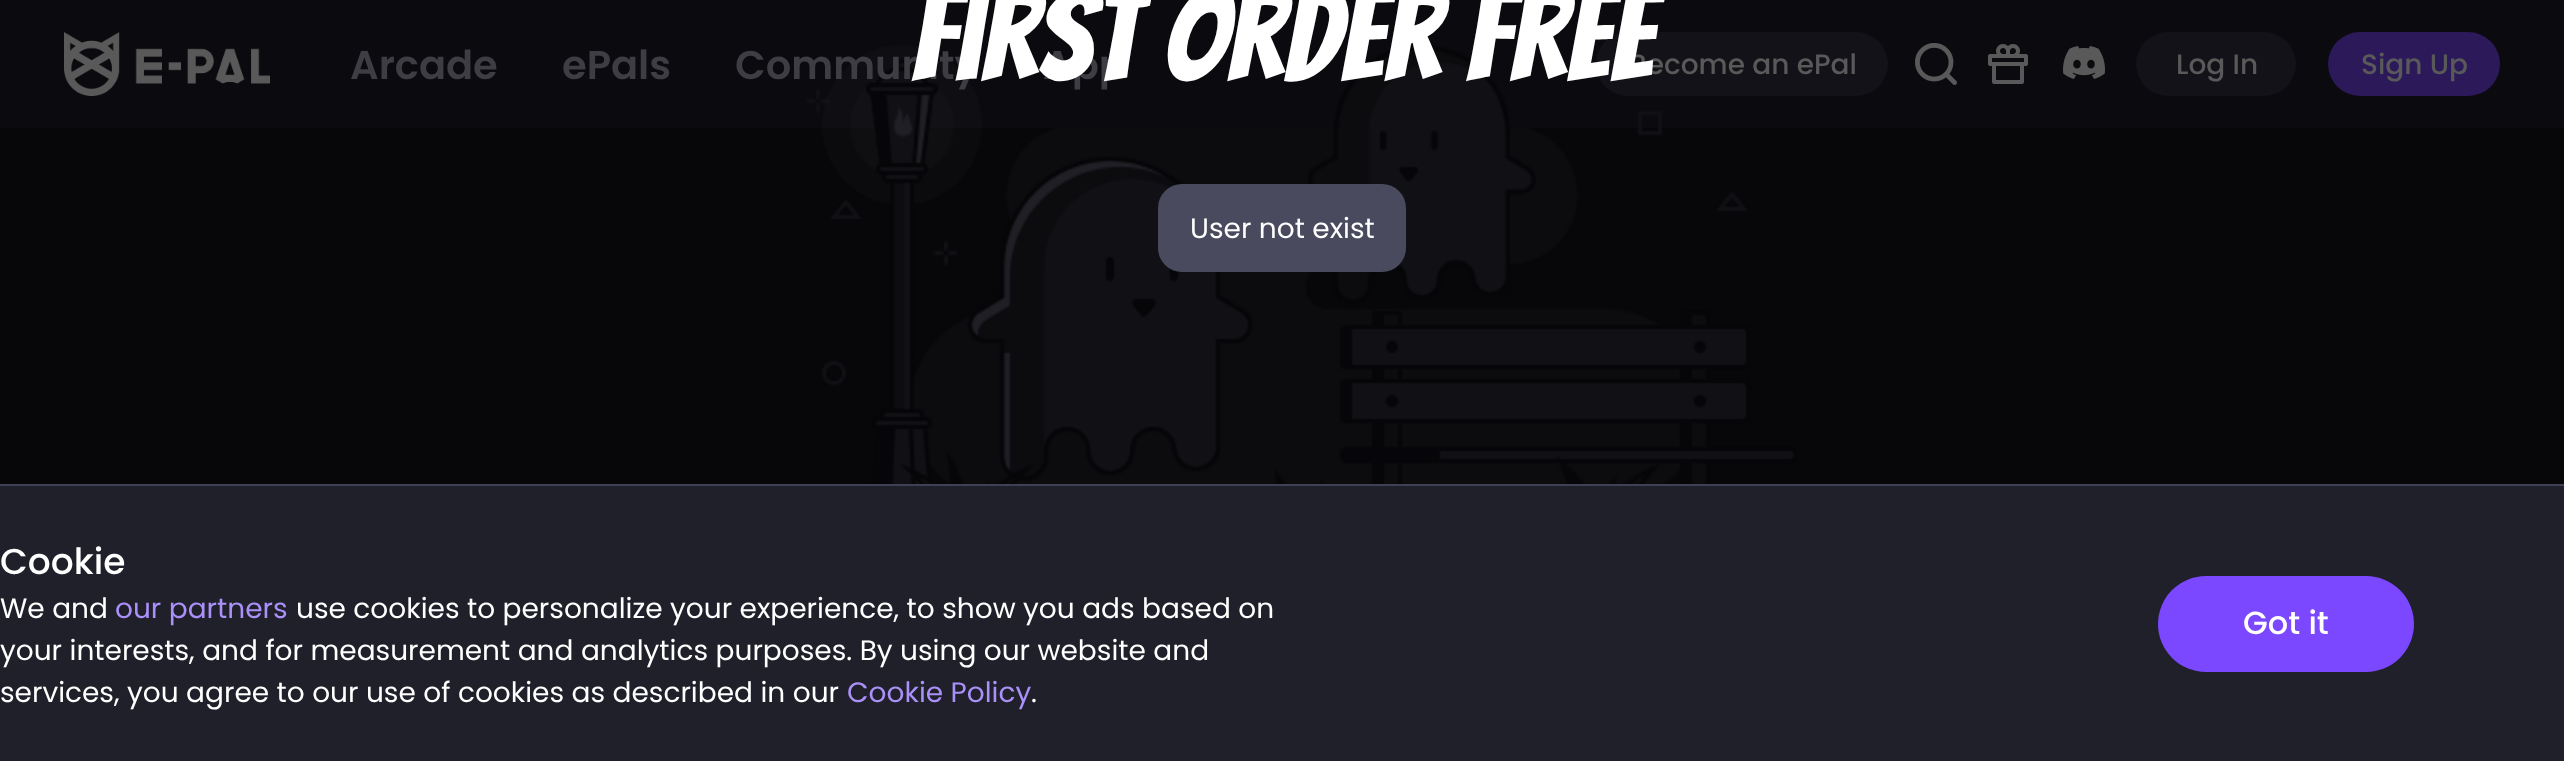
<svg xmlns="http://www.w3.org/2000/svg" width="2564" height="761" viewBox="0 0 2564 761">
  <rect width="100%" height="100%" fill="#070709"/>
  <path d="M0 0h2564v128H0z" fill="#0b0b0f"/>
  <image x="806" y="44" width="991" height="440" href="img/1.png"/>
  <path d="M0 486h2564v275H0z" fill="#20202b"/>
  <path d="M0 484h2564v2H0z" fill="#3f4055"/>
  <rect x="2158" y="576" width="256" height="96" rx="48" fill="#7b47ff"/>
  <image x="64" y="32" width="206" height="64" href="img/2.png"/>
  <image x="1173" y="59" width="42" height="10" href="img/3.png"/>
  <rect x="1596" y="32" width="292" height="64" rx="32" fill="#121218"/>
  <image x="1915" y="43" width="42" height="42" href="img/4.png"/>
  <image x="1988" y="44" width="40" height="40" href="img/5.png"/>
  <image x="2063" y="46" width="42" height="33" href="img/6.png"/>
  <rect x="2136" y="32" width="160" height="64" rx="32" fill="#121218"/>
  <rect x="2328" y="32" width="172" height="64" rx="32" fill="#2b1959"/>
  <rect x="1158" y="184" width="248" height="88" rx="24" fill="#4a4a5e"/>
  <text x="0" y="574" font-family="Poppins" font-size="36" font-weight="500" fill="#fff">Cookie</text>
  <text x="0" y="618" font-family="Poppins" font-size="28" fill="#fff">We and</text>
  <text x="115" y="618" font-family="Poppins" font-size="28" fill="#aa90f9">our partners</text>
  <g font-family="Poppins" font-size="28" fill="#fff">
    <text x="296" y="618">use cookies to personalize your experience, to show you ads based on</text>
    <text x="0" y="660">your interests, and for measurement and analytics purposes. By using our website and</text>
    <text x="0" y="702">services, you agree to our use of cookies as described in our</text>
  </g>
  <text x="847" y="702" font-family="Poppins" font-size="28" fill="#aa90f9">Cookie Policy</text>
  <text x="1031" y="702" font-family="Poppins" font-size="28" fill="#fff">.</text>
  <text x="2243" y="634" font-family="Poppins" font-size="32" font-weight="500" fill="#fff">Got it</text>
  <g font-family="Poppins" font-size="40" font-weight="600" fill="#3d3d43">
    <text x="350" y="79">Arcade</text>
    <text x="562" y="79">ePals</text>
    <text x="735" y="79">Community</text>
    <text x="1043" y="79">App</text>
  </g>
  <text x="1629" y="74" font-family="Poppins" font-size="28" font-weight="500" fill="#595959">Become an ePal</text>
  <text x="911" y="81" font-family="Bangers" font-size="128" fill="#fff">First Order Free</text>
  <g font-family="Poppins" font-size="28" font-weight="500" fill="#595959">
    <text x="2176" y="74">Log In</text>
    <text x="2361" y="74">Sign Up</text>
  </g>
  <text x="1190" y="238" font-family="Poppins" font-size="28" fill="#fff">User not exist</text>
</svg>
